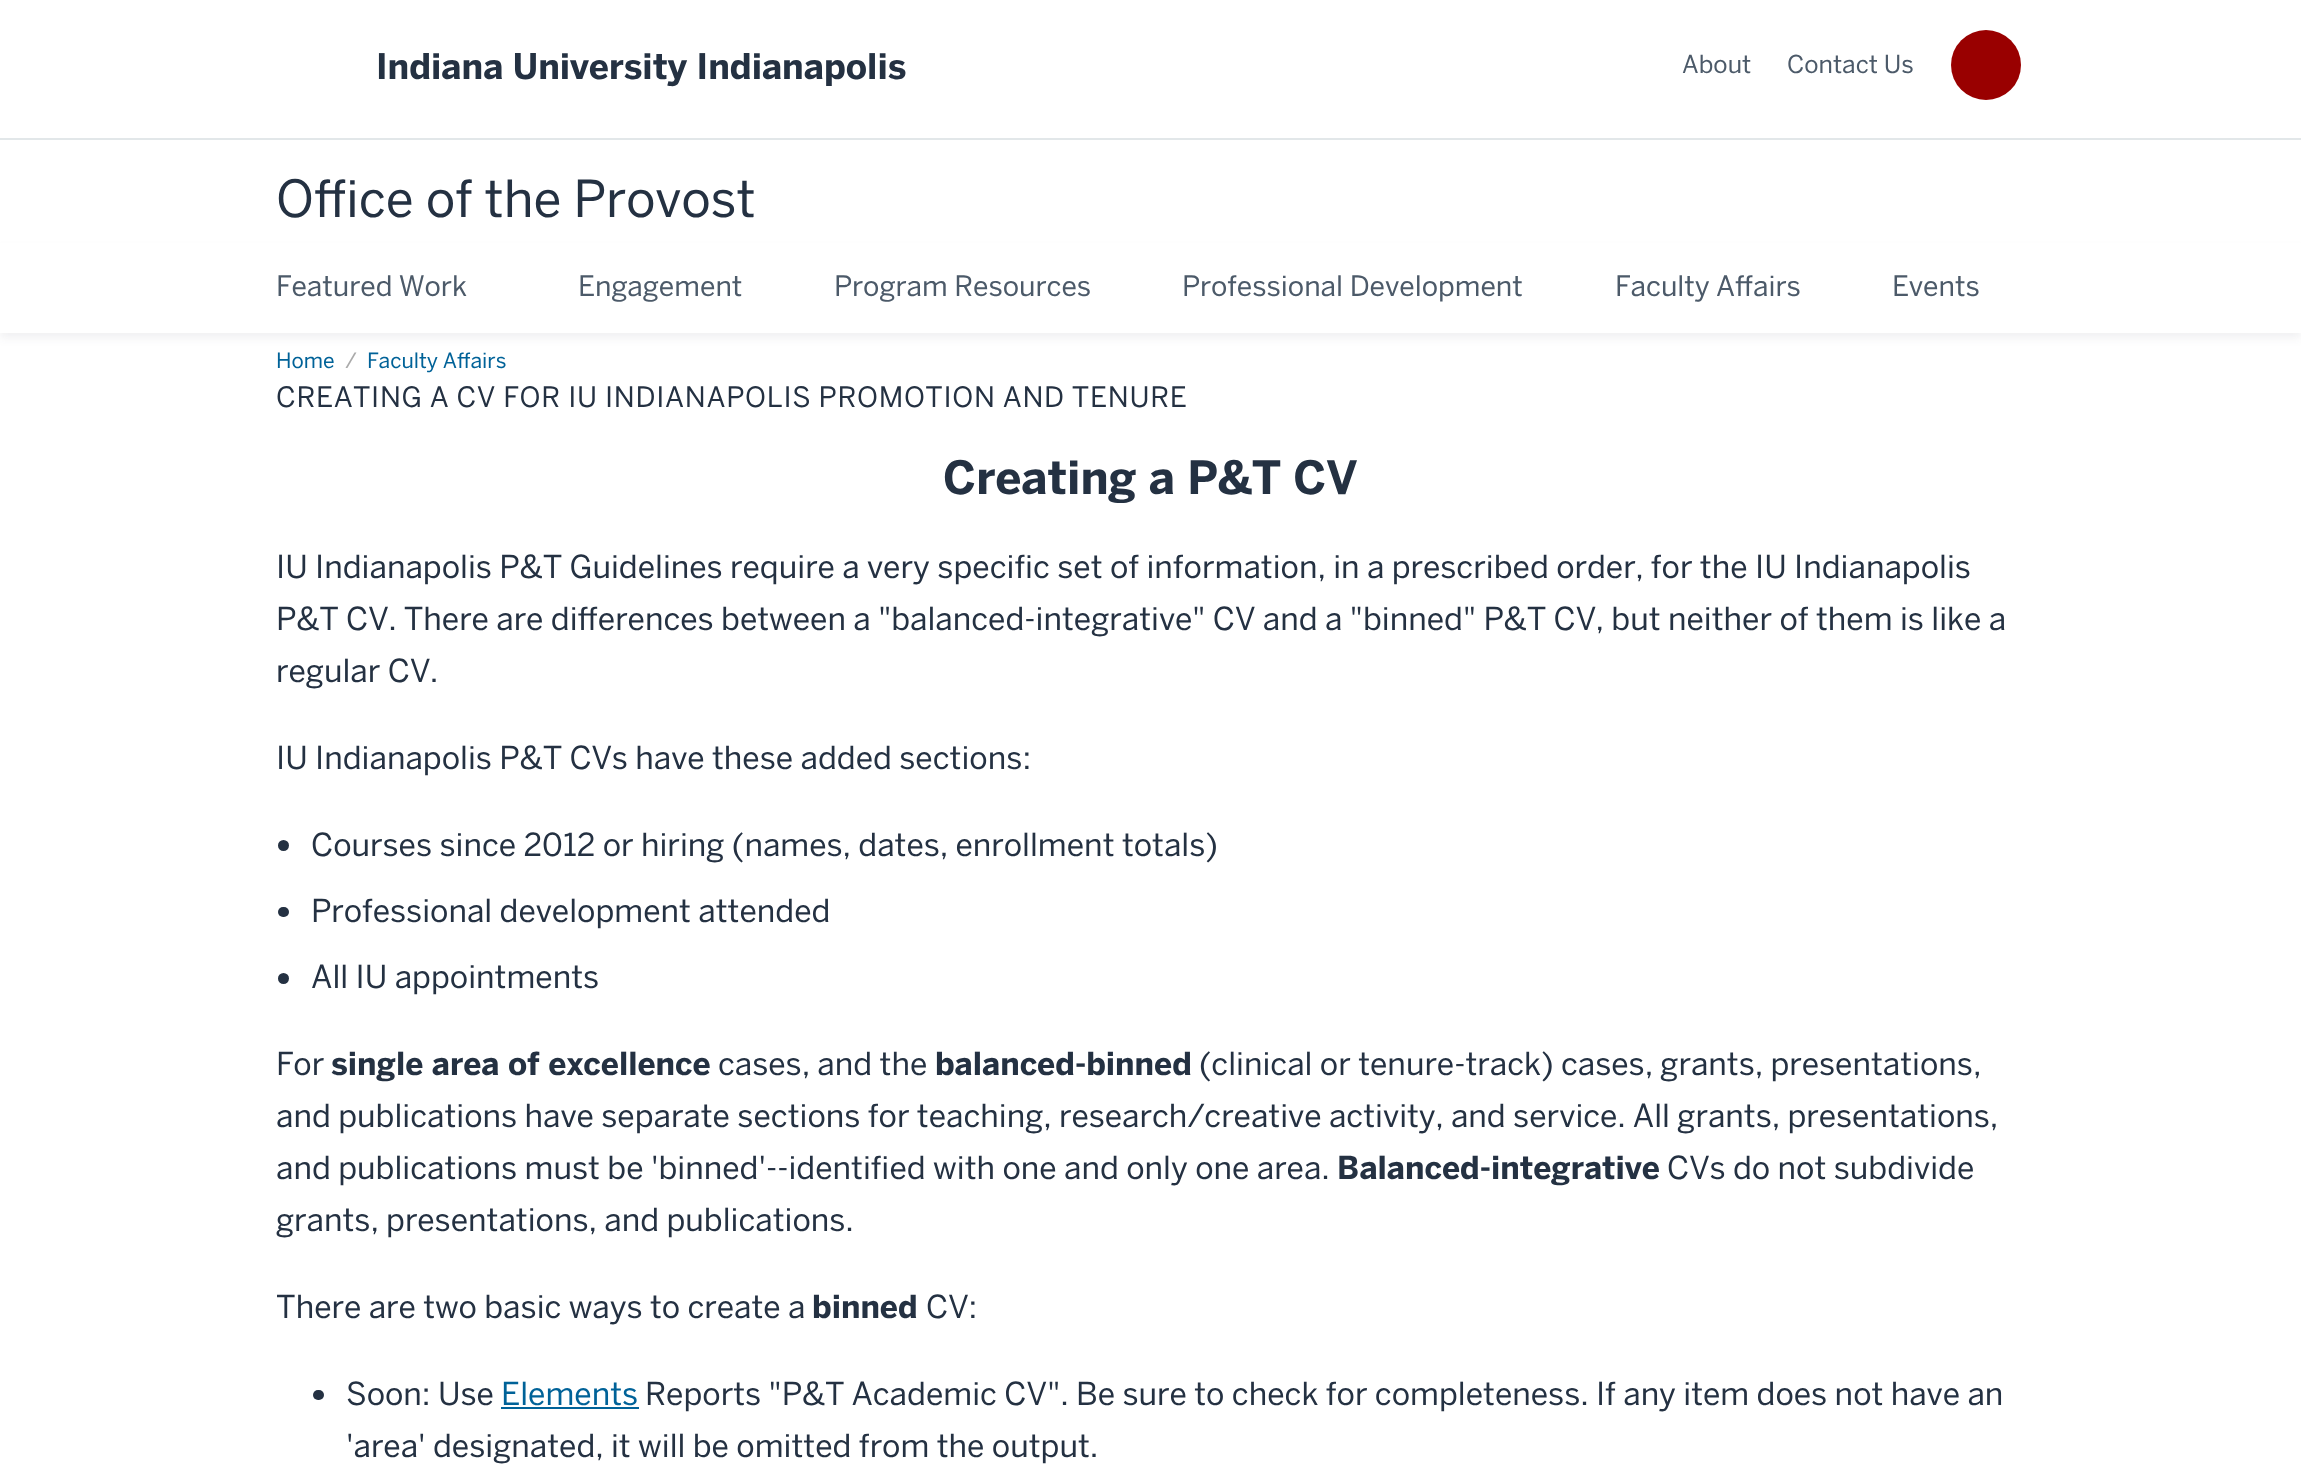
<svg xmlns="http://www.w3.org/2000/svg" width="2301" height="1465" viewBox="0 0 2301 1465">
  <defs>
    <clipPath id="clip1"><path d="M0 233H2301V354H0ZM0 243H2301V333H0Z" clip-rule="evenodd"/></clipPath>
  </defs>
  <rect width="100%" height="100%" fill="#fff"/>
  <path d="M0 138h2301v2H0z" fill="#e2e7e9"/>
  <circle cx="1986" cy="65" r="35" fill="#900"/>
  <g clip-path="url(#clip1)">
    <path d="M0 249h2301v89H0z" fill="#24314212" filter="blur(5px)"/>
  </g>
  <circle cx="283.5" cy="845.5" r="5.5" fill="#243142"/>
  <rect x="278" y="907" width="11" height="10" rx="5" fill="#243142"/>
  <circle cx="283.5" cy="978.5" r="5.5" fill="#243142"/>
  <rect x="313" y="1390" width="11" height="10" rx="5" fill="#243142"/>
  <path d="M501 1407h138v2H501z" fill="#006298"/>
  <text x="376" y="79" font-family="'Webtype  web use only'" font-size="35" font-weight="bold" fill="#243142">Indiana University Indianapolis</text>
  <g font-family="'Webtype  web use only'" font-size="24.5" fill="#4c5a69">
    <text x="1682" y="73">About</text>
    <text x="1787" y="73">Contact Us</text>
  </g>
  <text x="276" y="217" font-family="'Webtype  web use only'" font-size="50.75" fill="#243142">Office of the Provost</text>
  <g font-family="'Webtype  web use only'" font-size="28" fill="#4c5a69">
    <text x="276" y="296">Featured Work</text>
    <text x="578" y="296">Engagement</text>
    <text x="834" y="296">Program Resources</text>
    <text x="1182" y="296">Professional Development</text>
    <text x="1615" y="296">Faculty Affairs</text>
    <text x="1892" y="296">Events</text>
  </g>
  <text x="276" y="368" font-family="'Webtype  web use only'" font-size="21" fill="#006298">Home</text>
  <text x="345" y="368" font-family="'Webtype  web use only'" font-size="21" fill="#aaa">/</text>
  <text x="367" y="368" font-family="'Webtype  web use only'" font-size="21" fill="#006298">Faculty Affairs</text>
  <text x="276" y="407" font-family="'Webtype  web use only'" font-size="28" letter-spacing="0.7" fill="#243142">CREATING A CV FOR IU INDIANAPOLIS PROMOTION AND TENURE</text>
  <text x="943" y="494" font-family="'Webtype  web use only'" font-size="45.5" font-weight="bold" fill="#243142">Creating a P&amp;T CV</text>
  <g font-family="'Webtype  web use only'" font-size="31.5" fill="#243142">
    <text x="276" y="578">IU Indianapolis P&amp;T Guidelines require a very specific set of information, in a prescribed order, for the IU Indianapolis</text>
    <text x="276" y="630">P&amp;T CV. There are differences between a "balanced-integrative" CV and a "binned" P&amp;T CV, but neither of them is like a</text>
    <text x="276" y="682">regular CV.</text>
    <text x="276" y="769">IU Indianapolis P&amp;T CVs have these added sections:</text>
    <text x="311" y="856">Courses since 2012 or hiring (names, dates, enrollment totals)</text>
    <text x="311" y="922">Professional development attended</text>
    <text x="311" y="988">All IU appointments</text>
    <text x="276" y="1075">For</text>
  </g>
  <text x="331" y="1075" font-family="'Webtype  web use only'" font-size="31.5" font-weight="bold" fill="#243142">single area of excellence</text>
  <text x="718" y="1075" font-family="'Webtype  web use only'" font-size="31.5" fill="#243142">cases, and the</text>
  <text x="935" y="1075" font-family="'Webtype  web use only'" font-size="31.5" font-weight="bold" fill="#243142">balanced-binned</text>
  <g font-family="'Webtype  web use only'" font-size="31.5" fill="#243142">
    <text x="1199" y="1075">(clinical or tenure-track) cases, grants, presentations,</text>
    <text x="276" y="1127">and publications have separate sections for teaching, research/creative activity, and service. All grants, presentations,</text>
    <text x="276" y="1179">and publications must be 'binned'--identified with one and only one area.</text>
  </g>
  <text x="1337" y="1179" font-family="'Webtype  web use only'" font-size="31.5" font-weight="bold" fill="#243142">Balanced-integrative</text>
  <g font-family="'Webtype  web use only'" font-size="31.5" fill="#243142">
    <text x="1667" y="1179">CVs do not subdivide</text>
    <text x="276" y="1231">grants, presentations, and publications.</text>
    <text x="276" y="1318">There are two basic ways to create a</text>
  </g>
  <text x="812" y="1318" font-family="'Webtype  web use only'" font-size="31.5" font-weight="bold" fill="#243142">binned</text>
  <g font-family="'Webtype  web use only'" font-size="31.5" fill="#243142">
    <text x="926" y="1318">CV:</text>
    <text x="346" y="1405">Soon: Use</text>
  </g>
  <text x="501" y="1405" font-family="'Webtype  web use only'" font-size="31.5" fill="#006298">Elements</text>
  <g font-family="'Webtype  web use only'" font-size="31.5" fill="#243142">
    <text x="645" y="1405">Reports "P&amp;T Academic CV". Be sure to check for completeness. If any item does not have an</text>
    <text x="346" y="1457">'area' designated, it will be omitted from the output.</text>
  </g>
</svg>
